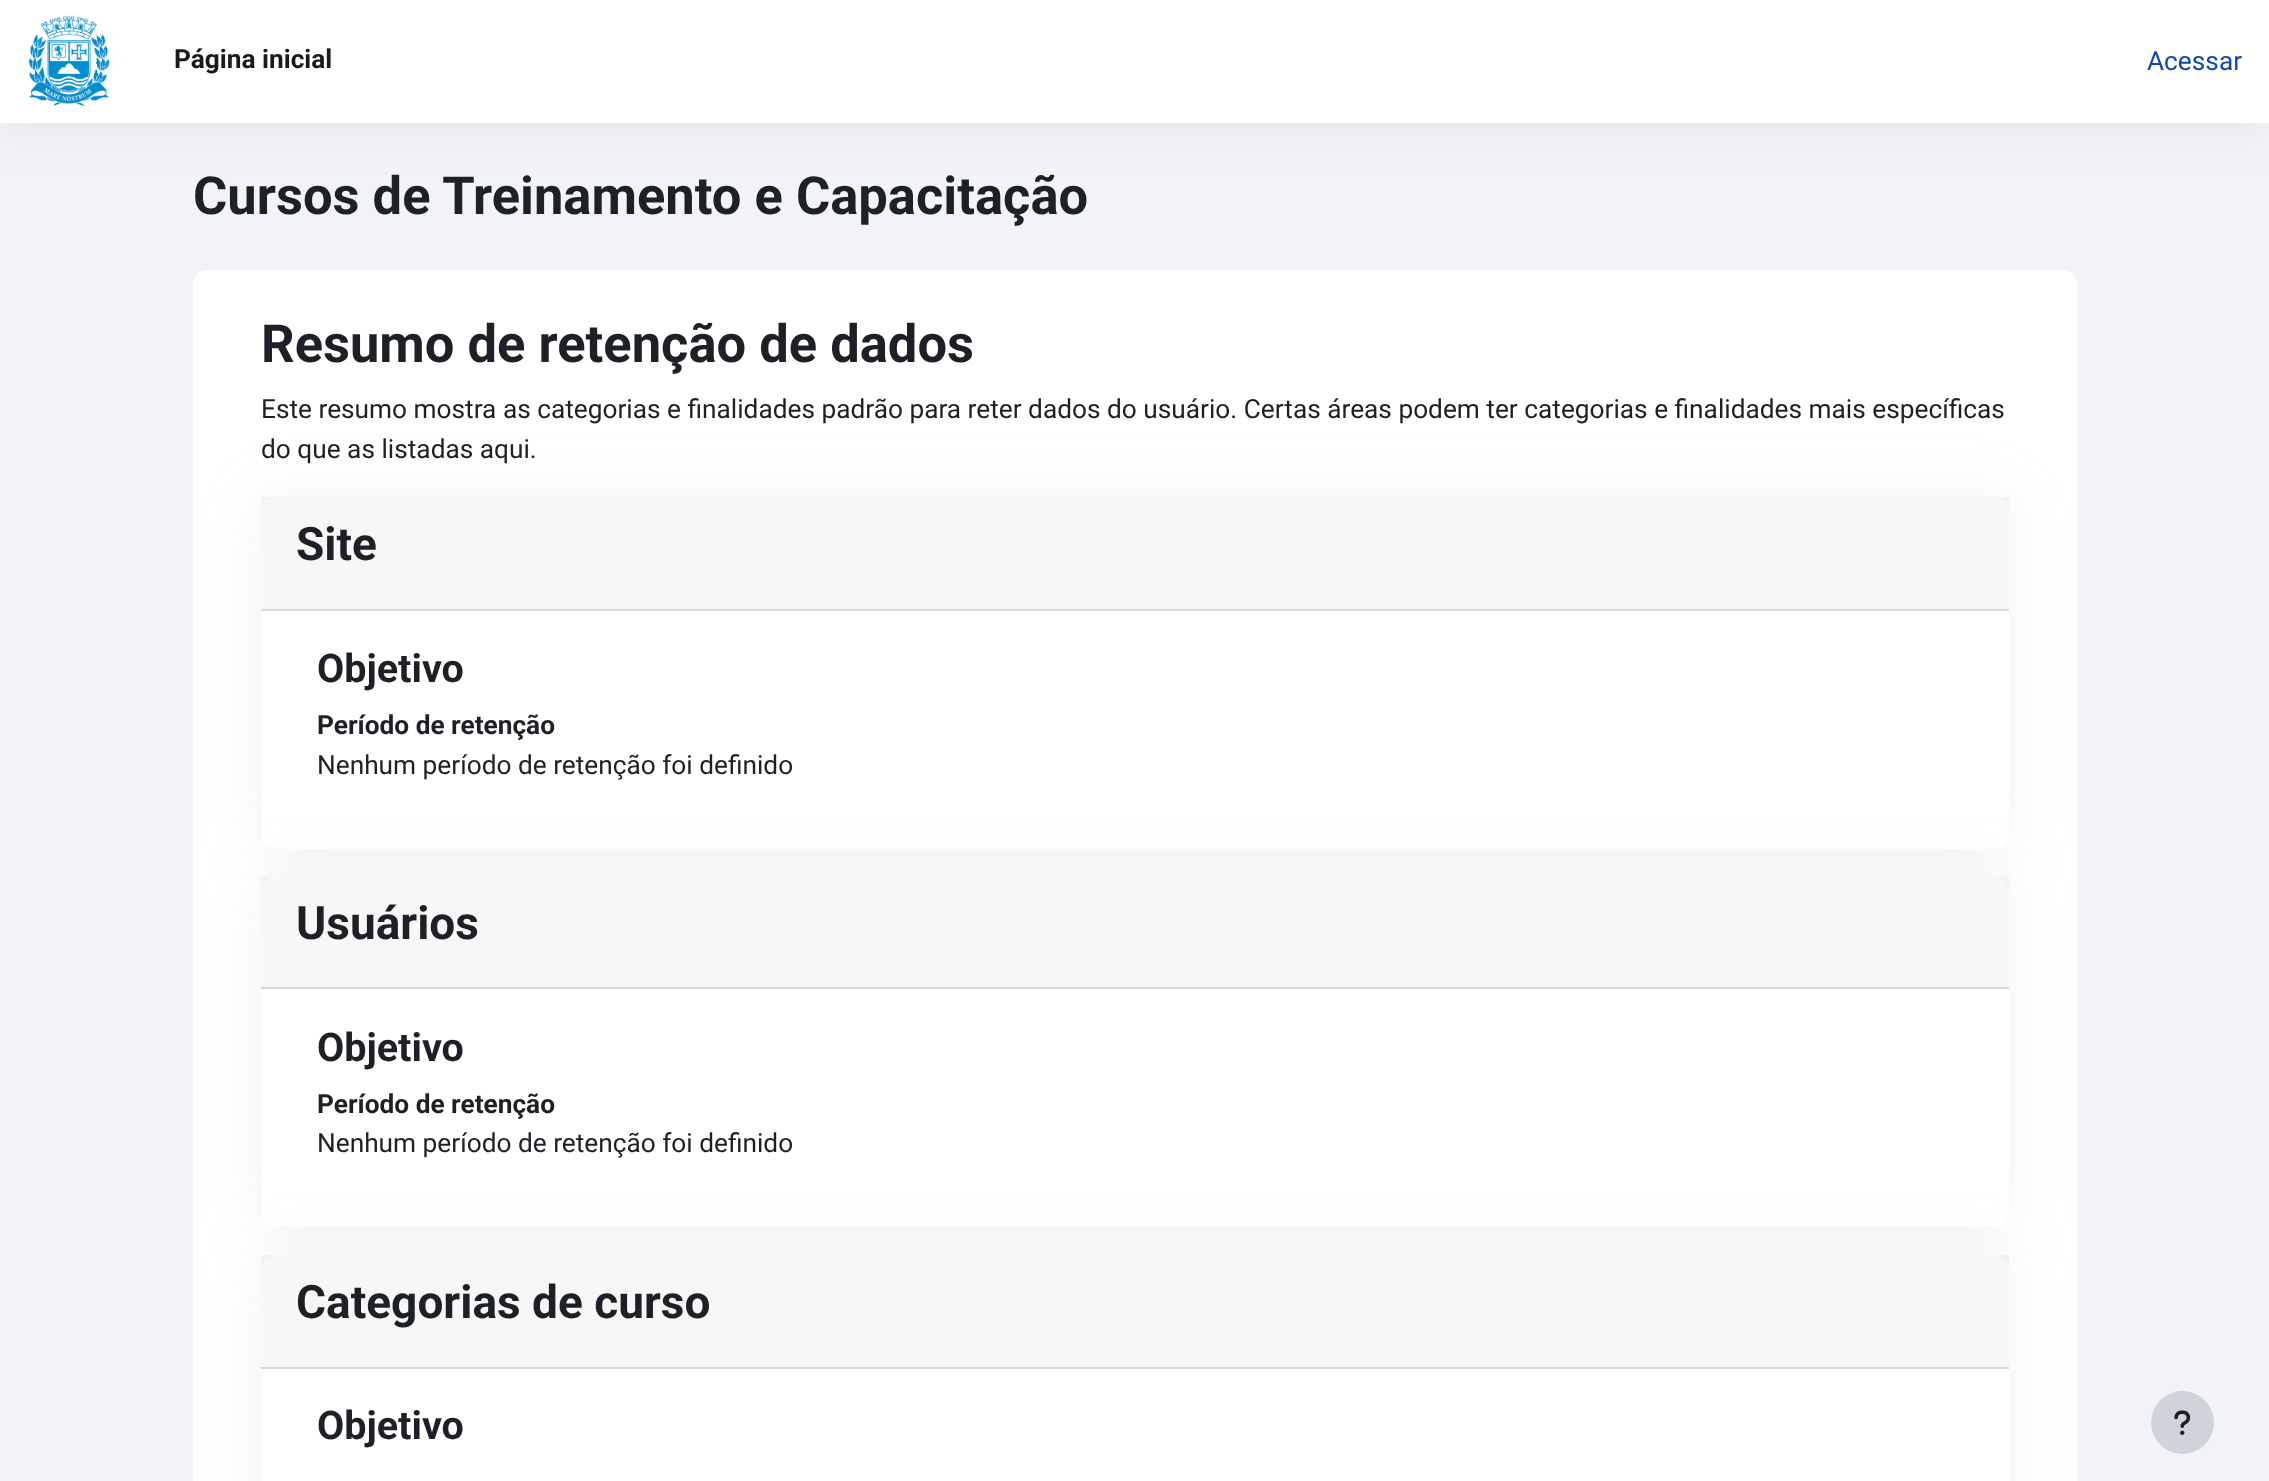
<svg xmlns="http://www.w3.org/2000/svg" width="2269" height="1481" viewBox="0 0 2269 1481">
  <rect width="100%" height="100%" fill="#f2f3f7"/>
  <path d="M0 11h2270v122H0z" fill="#8c98a421" filter="blur(21px)"/>
  <path d="M0 0h2269v123H0z" fill="#fff"/>
  <image x="28" y="16" width="82" height="90" href="img/1.png"/>
  <rect x="193" y="270" width="1884" height="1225" rx="14" fill="#fff"/>
  <rect x="261" y="497" width="1748" height="352" rx="14" fill="#9aa1ab26" filter="blur(30.5px)"/>
  <rect x="261" y="497" width="1748" height="352" rx="14" fill="#fff"/>
  <path d="M261 497h1748v112H261z" fill="#00000008"/>
  <path d="M261 609h1748v2H261z" fill="#d8d8d8"/>
  <rect x="261" y="877" width="1748" height="350" rx="14" fill="#9aa1ab26" filter="blur(30.5px)"/>
  <rect x="261" y="877" width="1748" height="350" rx="14" fill="#fff"/>
  <path d="M261 877h1748v110H261z" fill="#00000008"/>
  <path d="M261 987h1748v2H261z" fill="#d8d8d8"/>
  <rect x="261" y="1255" width="1748" height="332" rx="14" fill="#9aa1ab26" filter="blur(30.5px)"/>
  <rect x="261" y="1255" width="1748" height="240" rx="14" fill="#fff"/>
  <path d="M261 1255h1748v112H261z" fill="#00000008"/>
  <path d="M261 1367h1748v2H261z" fill="#d8d8d8"/>
  <circle cx="2182.5" cy="1422.5" r="31.5" fill="#ced4da"/>
  <image x="2174" y="1410" width="17" height="25" href="img/2.png"/>
  <text x="174" y="68" font-family="Roboto" font-size="26.25" font-weight="bold" fill="#1a1a1a">Página inicial</text>
  <text x="2147" y="70" font-family="Roboto" font-size="26.25" fill="#0f47ad">Acessar</text>
  <g font-family="Roboto" font-size="52.5" font-weight="bold" fill="#1d2125">
    <text x="193" y="214">Cursos de Treinamento e Capacitação</text>
    <text x="261" y="362">Resumo de retenção de dados</text>
  </g>
  <g font-family="Roboto" font-size="26.25" fill="#1d2125">
    <text x="261" y="418">Este resumo mostra as categorias e finalidades padrão para reter dados do usuário. Certas áreas podem ter categorias e finalidades mais específicas</text>
    <text x="261" y="458">do que as listadas aqui.</text>
  </g>
  <text x="296" y="560" font-family="Roboto" font-size="46" font-weight="bold" fill="#1d2125">Site</text>
  <text x="317" y="682" font-family="Roboto" font-size="39.5" font-weight="bold" fill="#1d2125">Objetivo</text>
  <text x="317" y="734" font-family="Roboto" font-size="26.25" font-weight="bold" fill="#1d2125">Período de retenção</text>
  <text x="317" y="774" font-family="Roboto" font-size="26.25" fill="#1d2125">Nenhum período de retenção foi definido</text>
  <text x="296" y="939" font-family="Roboto" font-size="46" font-weight="bold" fill="#1d2125">Usuários</text>
  <text x="317" y="1061" font-family="Roboto" font-size="39.5" font-weight="bold" fill="#1d2125">Objetivo</text>
  <text x="317" y="1113" font-family="Roboto" font-size="26.25" font-weight="bold" fill="#1d2125">Período de retenção</text>
  <text x="317" y="1152" font-family="Roboto" font-size="26.25" fill="#1d2125">Nenhum período de retenção foi definido</text>
  <text x="296" y="1318" font-family="Roboto" font-size="46" font-weight="bold" fill="#1d2125">Categorias de curso</text>
  <text x="317" y="1439" font-family="Roboto" font-size="39.5" font-weight="bold" fill="#1d2125">Objetivo</text>
</svg>
